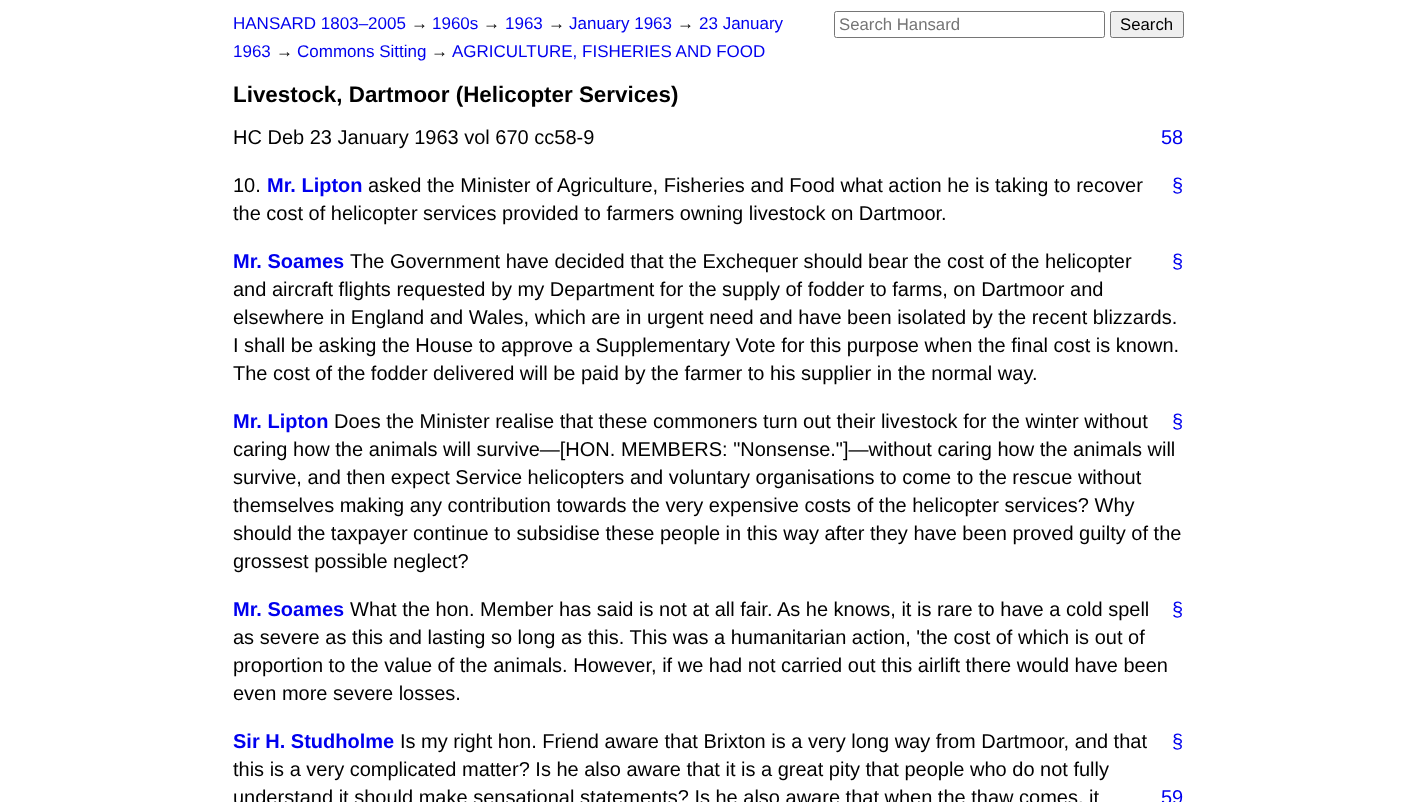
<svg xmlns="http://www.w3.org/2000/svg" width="1416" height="802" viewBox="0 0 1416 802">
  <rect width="100%" height="100%" fill="#fff"/>
  <rect x="834.5" y="11.5" width="270" height="26" rx="2" fill="none" stroke="#767676"/>
  <rect x="1110.5" y="11.5" width="73" height="26" rx="2" fill="#efefef" stroke="#767676"/>
  <text x="233" y="29" font-family="Liberation Sans" font-size="17" fill="#00e">HANSARD 1803–2005</text>
  <text x="411" y="29" font-family="Liberation Sans" font-size="17" fill="#000">→</text>
  <text x="432" y="29" font-family="Liberation Sans" font-size="17" fill="#00e">1960s</text>
  <text x="483" y="29" font-family="Liberation Sans" font-size="17" fill="#000">→</text>
  <text x="505" y="29" font-family="Liberation Sans" font-size="17" fill="#00e">1963</text>
  <text x="548" y="29" font-family="Liberation Sans" font-size="17" fill="#000">→</text>
  <text x="569" y="29" font-family="Liberation Sans" font-size="17" fill="#00e">January 1963</text>
  <text x="677" y="29" font-family="Liberation Sans" font-size="17" fill="#000">→</text>
  <g font-family="Liberation Sans" font-size="17" fill="#00e">
    <text x="699" y="29">23 January</text>
    <text x="233" y="57">1963</text>
  </g>
  <text x="276" y="57" font-family="Liberation Sans" font-size="17" fill="#000">→</text>
  <text x="297" y="57" font-family="Liberation Sans" font-size="17" fill="#00e">Commons Sitting</text>
  <text x="431" y="57" font-family="Liberation Sans" font-size="17" fill="#000">→</text>
  <text x="452" y="57" font-family="Liberation Sans" font-size="17" fill="#00e">AGRICULTURE, FISHERIES AND FOOD</text>
  <text x="839" y="30" font-family="Liberation Sans" font-size="16.75" fill="#757575">Search Hansard</text>
  <text x="1120" y="30" font-family="Liberation Sans" font-size="16.75" fill="#000">Search</text>
  <text x="233" y="102" font-family="Liberation Sans" font-size="22.4" font-weight="bold" fill="#000">Livestock, Dartmoor (Helicopter Services)</text>
  <text x="233" y="144" font-family="Liberation Sans" font-size="20" fill="#000">HC Deb 23 January 1963 vol 670 cc58-9</text>
  <text x="1161" y="144" font-family="Liberation Sans" font-size="20" fill="#00e">58</text>
  <text x="233" y="192" font-family="Liberation Sans" font-size="20" fill="#000">10.</text>
  <text x="267" y="192" font-family="Liberation Sans" font-size="20" font-weight="bold" fill="#00e">Mr. Lipton</text>
  <text x="368" y="192" font-family="Liberation Sans" font-size="20" fill="#000">asked the Minister of Agriculture, Fisheries and Food what action he is taking to recover</text>
  <text x="1172" y="192" font-family="Liberation Sans" font-size="20" fill="#00e">§</text>
  <text x="233" y="220" font-family="Liberation Sans" font-size="20" fill="#000">the cost of helicopter services provided to farmers owning livestock on Dartmoor.</text>
  <text x="233" y="268" font-family="Liberation Sans" font-size="20" font-weight="bold" fill="#00e">Mr. Soames</text>
  <text x="350" y="268" font-family="Liberation Sans" font-size="20" fill="#000">The Government have decided that the Exchequer should bear the cost of the helicopter</text>
  <text x="1172" y="268" font-family="Liberation Sans" font-size="20" fill="#00e">§</text>
  <g font-family="Liberation Sans" font-size="20" fill="#000">
    <text x="233" y="296">and aircraft flights requested by my Department for the supply of fodder to farms, on Dartmoor and</text>
    <text x="233" y="324">elsewhere in England and Wales, which are in urgent need and have been isolated by the recent blizzards.</text>
    <text x="233" y="352">I shall be asking the House to approve a Supplementary Vote for this purpose when the final cost is known.</text>
    <text x="233" y="380">The cost of the fodder delivered will be paid by the farmer to his supplier in the normal way.</text>
  </g>
  <text x="233" y="428" font-family="Liberation Sans" font-size="20" font-weight="bold" fill="#00e">Mr. Lipton</text>
  <text x="334" y="428" font-family="Liberation Sans" font-size="20" fill="#000">Does the Minister realise that these commoners turn out their livestock for the winter without</text>
  <text x="1172" y="428" font-family="Liberation Sans" font-size="20" fill="#00e">§</text>
  <g font-family="Liberation Sans" font-size="20" fill="#000">
    <text x="233" y="456">caring how the animals will survive—[HON. MEMBERS: "Nonsense."]—without caring how the animals will</text>
    <text x="233" y="484">survive, and then expect Service helicopters and voluntary organisations to come to the rescue without</text>
    <text x="233" y="512">themselves making any contribution towards the very expensive costs of the helicopter services? Why</text>
    <text x="233" y="540">should the taxpayer continue to subsidise these people in this way after they have been proved guilty of the</text>
    <text x="233" y="568">grossest possible neglect?</text>
  </g>
  <text x="233" y="616" font-family="Liberation Sans" font-size="20" font-weight="bold" fill="#00e">Mr. Soames</text>
  <text x="350" y="616" font-family="Liberation Sans" font-size="20" fill="#000">What the hon. Member has said is not at all fair. As he knows, it is rare to have a cold spell</text>
  <text x="1172" y="616" font-family="Liberation Sans" font-size="20" fill="#00e">§</text>
  <g font-family="Liberation Sans" font-size="20" fill="#000">
    <text x="233" y="644">as severe as this and lasting so long as this. This was a humanitarian action, 'the cost of which is out of</text>
    <text x="233" y="672">proportion to the value of the animals. However, if we had not carried out this airlift there would have been</text>
    <text x="233" y="700">even more severe losses.</text>
    <text x="400" y="748">Is my right hon. Friend aware that Brixton is a very long way from Dartmoor, and that</text>
    <text x="233" y="776">this is a very complicated matter? Is he also aware that it is a great pity that people who do not fully</text>
    <text x="233" y="804">understand it should make sensational statements? Is he also aware that when the thaw comes, it</text>
  </g>
  <text x="1161" y="804" font-family="Liberation Sans" font-size="20" fill="#00e">59</text>
  <text x="233" y="748" font-family="Liberation Sans" font-size="20" font-weight="bold" fill="#00e">Sir H. Studholme</text>
  <text x="1172" y="748" font-family="Liberation Sans" font-size="20" fill="#00e">§</text>
</svg>
